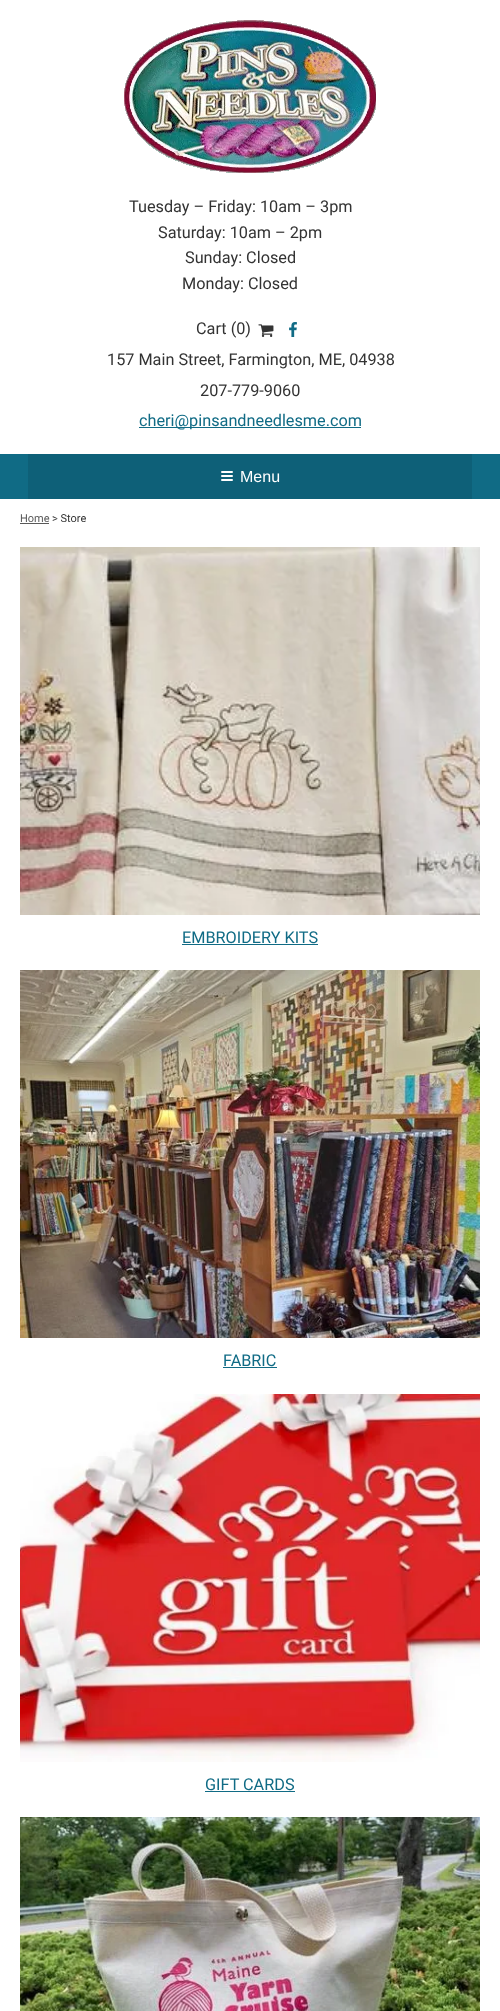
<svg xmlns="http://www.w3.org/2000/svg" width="500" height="2011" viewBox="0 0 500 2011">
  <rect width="100%" height="100%" fill="#fff"/>
  <image x="124" y="20" width="252" height="153" href="img/1.png"/>
  <image x="258" y="324" width="16" height="13" href="img/2.png"/>
  <image x="289" y="322" width="8" height="15" href="img/3.png"/>
  <path d="M139 427h222v1H139z" fill="#106b85"/>
  <path d="M0 454h500v45H0z" fill="#106b85"/>
  <path d="M28 454h444v45H28z" fill="#0e6078"/>
  <rect x="221" y="475" width="12" height="2" rx="1" fill="#fff"/>
  <rect x="221" y="471" width="12" height="2" rx="1" fill="#fff"/>
  <rect x="221" y="479" width="12" height="2" rx="1" fill="#fff"/>
  <path d="M20 523h29v1H20z" fill="#595959"/>
  <image x="20" y="547" width="460" height="368" href="img/4.png"/>
  <path d="M182 944h136v1H182z" fill="#106b85"/>
  <image x="20" y="970" width="460" height="368" href="img/5.png"/>
  <path d="M223 1367h54v1H223z" fill="#106b85"/>
  <image x="20" y="1394" width="460" height="368" href="img/6.png"/>
  <path d="M205 1791h90v1H205z" fill="#106b85"/>
  <image x="20" y="1817" width="460" height="194" href="img/7.png"/>
  <g font-family="Roboto" font-size="16.25" fill="#333">
    <text x="129" y="212">Tuesday – Friday: 10am – 3pm</text>
    <text x="158" y="238">Saturday: 10am – 2pm</text>
    <text x="185" y="263">Sunday: Closed</text>
    <text x="182" y="289">Monday: Closed</text>
    <text x="196" y="334">Cart (0)</text>
    <text x="107" y="365">157 Main Street, Farmington, ME, 04938</text>
    <text x="200" y="396">207-779-9060</text>
  </g>
  <text x="139" y="426" font-family="Roboto" font-size="16.25" fill="#106b85">cheri@pinsandneedlesme.com</text>
  <text x="240" y="482" font-family="Liberation Sans" font-size="16" fill="#fff">Menu</text>
  <text x="20" y="522" font-family="Roboto" font-size="11" fill="#595959">Home</text>
  <text x="52" y="522" font-family="Roboto" font-size="11" fill="#333">&gt; Store</text>
  <g font-family="Roboto" font-size="16.25" fill="#106b85">
    <text x="182" y="943">EMBROIDERY KITS</text>
    <text x="223" y="1366">FABRIC</text>
    <text x="205" y="1790">GIFT CARDS</text>
  </g>
</svg>
